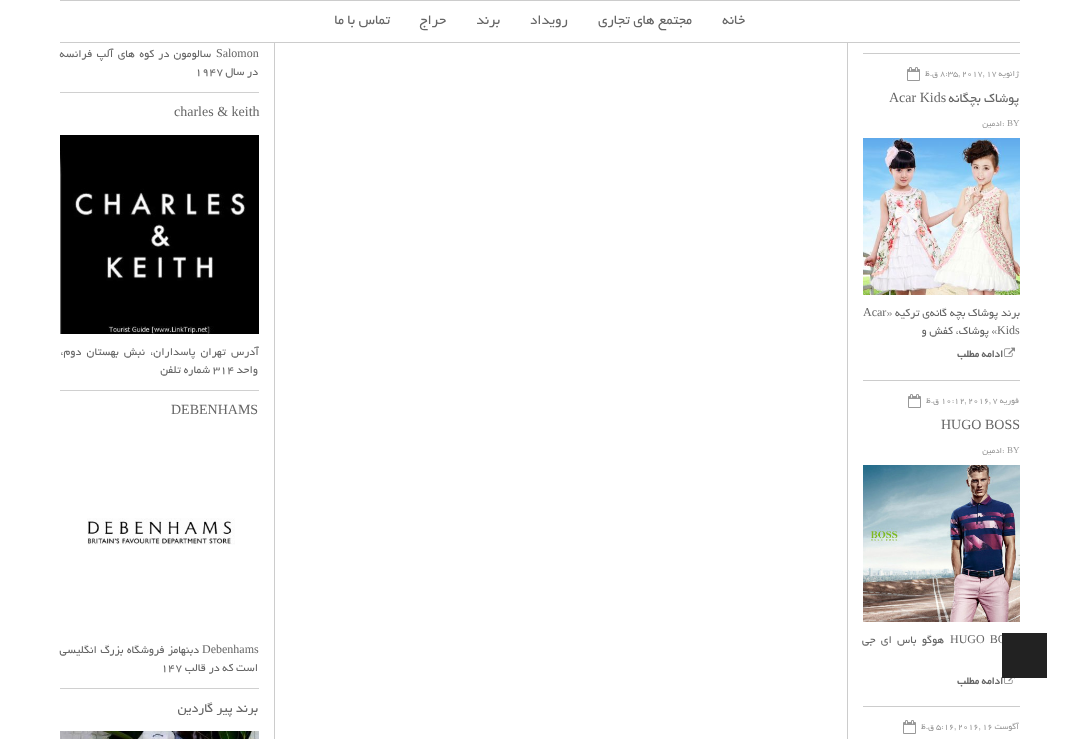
<svg xmlns="http://www.w3.org/2000/svg" width="1079" height="739" viewBox="0 0 1079 739">
  <rect width="100%" height="100%" fill="#fff"/>
  <path d="M60 0h960v1H60z" fill="#ccc"/>
  <path d="M60 42h960v1H60z" fill="#ccc"/>
  <path d="M274 43h1v696H274z" fill="#ccc"/>
  <path d="M847 43h1v696H847z" fill="#ccc"/>
  <path d="M863 53h157v1H863z" fill="#ccc"/>
  <image x="907" y="67" width="13" height="14" href="img/1.png"/>
  <image x="863" y="138" width="157" height="157" href="img/2.png"/>
  <image x="1004" y="347" width="11" height="10" href="img/3.png"/>
  <path d="M863 380h157v1H863z" fill="#ccc"/>
  <image x="908" y="394" width="13" height="14" href="img/1.png"/>
  <image x="863" y="465" width="157" height="157" href="img/4.png"/>
  <image x="1004" y="678" width="11" height="6" href="img/5.png"/>
  <path d="M863 706h157v1H863z" fill="#ccc"/>
  <image x="903" y="720" width="13" height="14" href="img/1.png"/>
  <path d="M60 92h199v1H60z" fill="#d0d0d0"/>
  <image x="60" y="135" width="199" height="199" href="img/6.png"/>
  <path d="M60 390h199v1H60z" fill="#d0d0d0"/>
  <image x="87" y="518" width="148" height="27" href="img/7.png"/>
  <path d="M60 688h199v1H60z" fill="#d0d0d0"/>
  <image x="60" y="731" width="199" height="8" href="img/8.png"/>
  <g font-family="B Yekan" font-size="15" direction="rtl" fill="#666">
    <text x="745" y="24">خانه</text>
    <text x="692" y="24">مجتمع های تجاری</text>
    <text x="568" y="24">رویداد</text>
    <text x="500" y="24">برند</text>
    <text x="446" y="24">حراج</text>
    <text x="390" y="24">تماس با ما</text>
  </g>
  <text x="1019" y="76" font-family="B Yekan" font-size="9" direction="rtl" fill="#999">ژانویه</text>
  <text x="940" y="76" font-family="B Yekan" font-size="9" fill="#999">8:35, 2017, 17</text>
  <text x="938" y="76" font-family="B Yekan" font-size="9" direction="rtl" fill="#999">ق.ظ</text>
  <text x="1019" y="102" font-family="B Yekan" font-size="14" direction="rtl" fill="#666">پوشاک بچگانه</text>
  <text x="889" y="102" font-family="Liberation Serif" font-size="14" fill="#666">Acar Kids</text>
  <text x="1007" y="126" font-family="Liberation Serif" font-size="9" fill="#999">BY</text>
  <text x="1002" y="126" font-family="B Yekan" font-size="9" fill="#999">:</text>
  <text x="1002" y="126" font-family="B Yekan" font-size="9" direction="rtl" fill="#999">ادمین</text>
  <text x="1020" y="316" font-family="B Yekan" font-size="12" direction="rtl" fill="#666">برند پوشاک بچه ‌‌گانه‌ی ترکیه «</text>
  <g font-family="Liberation Serif" font-size="12" fill="#666">
    <text x="863" y="316">Acar</text>
    <text x="997" y="334">Kids</text>
  </g>
  <text x="997" y="334" font-family="B Yekan" font-size="12" direction="rtl" fill="#666">» پوشاک، کفش و</text>
  <text x="1003" y="357" font-family="B Yekan" font-size="11" font-weight="bold" direction="rtl" fill="#666">ادامه مطلب</text>
  <text x="1019" y="403" font-family="B Yekan" font-size="9" direction="rtl" fill="#999">فوریه</text>
  <text x="941" y="403" font-family="B Yekan" font-size="9" fill="#999">10:12, 2016, 7</text>
  <text x="939" y="403" font-family="B Yekan" font-size="9" direction="rtl" fill="#999">ق.ظ</text>
  <text x="941" y="429" font-family="Liberation Serif" font-size="14" fill="#666">HUGO BOSS</text>
  <text x="1007" y="453" font-family="Liberation Serif" font-size="9" fill="#999">BY</text>
  <text x="1002" y="453" font-family="B Yekan" font-size="9" fill="#999">:</text>
  <text x="1002" y="453" font-family="B Yekan" font-size="9" direction="rtl" fill="#999">ادمین</text>
  <text x="950" y="643" word-spacing="2" font-family="Liberation Serif" font-size="12" fill="#666">HUGO BO</text>
  <text x="944" y="643" word-spacing="2.5" font-family="B Yekan" font-size="12" direction="rtl" fill="#666">هوگو باس ای جی</text>
  <text x="1003" y="684" font-family="B Yekan" font-size="11" font-weight="bold" direction="rtl" fill="#666">ادامه مطلب</text>
  <path d="M1002 633h45v45H1002z" fill="#222"/>
  <text x="1019" y="729" font-family="B Yekan" font-size="9" direction="rtl" fill="#999">آگوست</text>
  <text x="936" y="729" font-family="B Yekan" font-size="9" fill="#999">5:16, 2016, 16</text>
  <text x="934" y="729" font-family="B Yekan" font-size="9" direction="rtl" fill="#999">ق.ظ</text>
  <text x="216" y="57" font-family="Liberation Serif" font-size="12" fill="#666">Salomon</text>
  <g font-family="B Yekan" font-size="12" direction="rtl" fill="#666">
    <text x="211" y="57" word-spacing="1.5">سالومون در کوه های آلپ فرانسه</text>
    <text x="258" y="75">در سال</text>
  </g>
  <text x="195" y="75" font-family="B Yekan" font-size="12" fill="#666">۱۹۴۷</text>
  <text x="174" y="116" font-family="Liberation Serif" font-size="14" fill="#666">charles &amp; keith</text>
  <g font-family="B Yekan" font-size="12" direction="rtl" fill="#666">
    <text x="259" y="355" word-spacing="2.5">آدرس تهران پاسداران، نبش بهستان دوم،</text>
    <text x="258" y="373">واحد</text>
  </g>
  <text x="213" y="373" font-family="B Yekan" font-size="12" fill="#666">۳۱۴</text>
  <text x="210" y="373" font-family="B Yekan" font-size="12" direction="rtl" fill="#666">شماره تلفن</text>
  <text x="171" y="414" font-family="Liberation Serif" font-size="14" fill="#666">DEBENHAMS</text>
  <text x="202" y="653" font-family="Liberation Serif" font-size="12" fill="#666">Debenhams</text>
  <g font-family="B Yekan" font-size="12" direction="rtl" fill="#666">
    <text x="199" y="653" word-spacing="0.5">دبنهامز فروشگاه بزرگ انگليسي</text>
    <text x="258" y="671">است كه در قالب</text>
  </g>
  <text x="161" y="671" font-family="B Yekan" font-size="12" fill="#666">۱۴۷</text>
  <text x="258" y="712" font-family="B Yekan" font-size="14" direction="rtl" fill="#666">برند پیر گاردین</text>
</svg>
